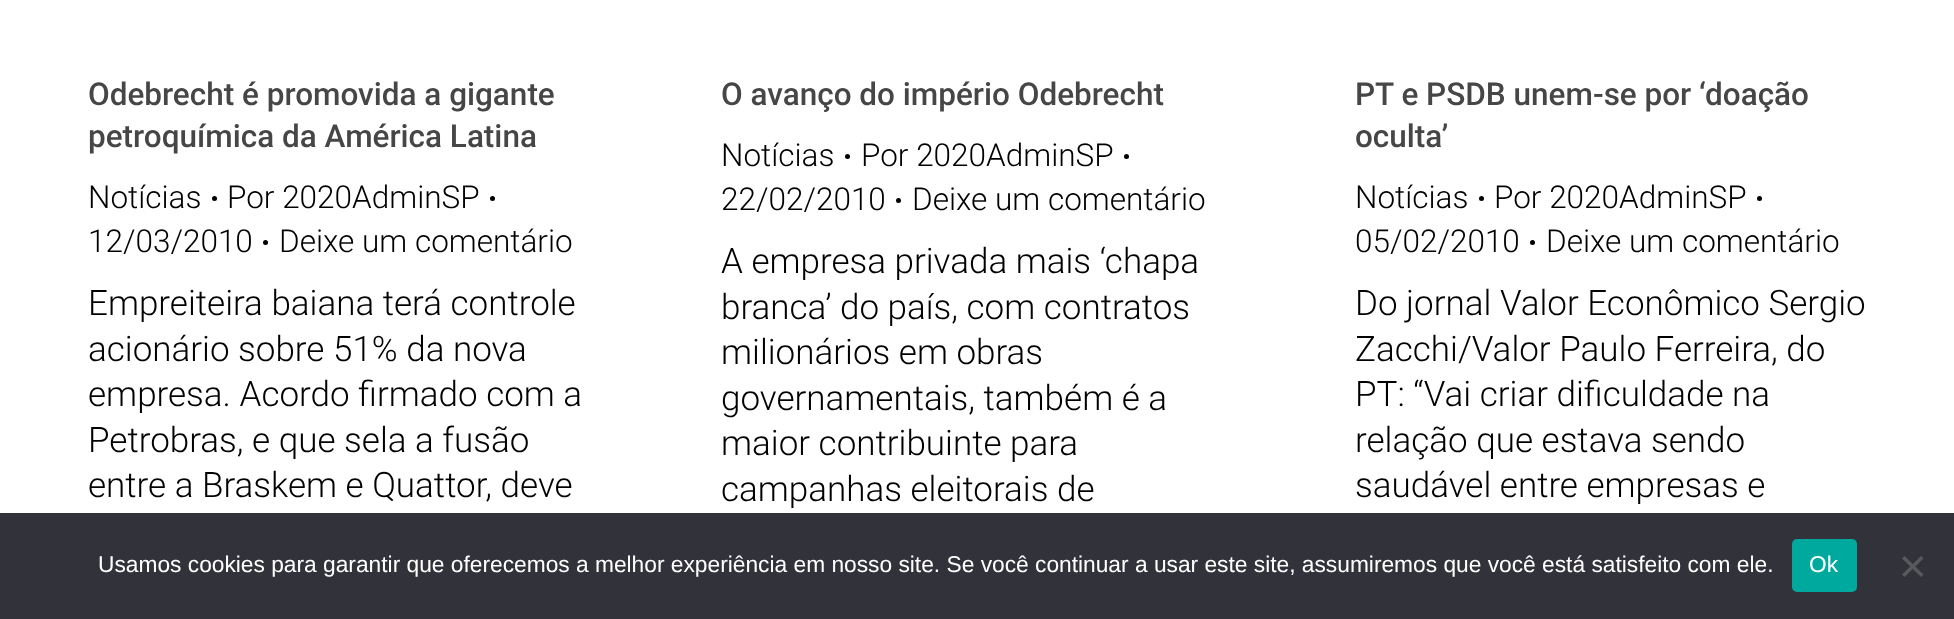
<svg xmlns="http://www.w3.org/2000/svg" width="1954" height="619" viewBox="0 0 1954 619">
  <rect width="100%" height="100%" fill="#fff"/>
  <circle cx="214.5" cy="198.5" r="2.5" fill="#000"/>
  <circle cx="492.5" cy="198.5" r="2.5" fill="#000"/>
  <circle cx="265.5" cy="242.5" r="2.5" fill="#000"/>
  <circle cx="847.5" cy="156.5" r="2.5" fill="#000"/>
  <circle cx="1126.5" cy="156.5" r="2.5" fill="#000"/>
  <circle cx="898.5" cy="200.5" r="2.5" fill="#000"/>
  <circle cx="1481.5" cy="198.5" r="2.5" fill="#000"/>
  <circle cx="1759.5" cy="198.5" r="2.5" fill="#000"/>
  <circle cx="1532.5" cy="242.5" r="2.5" fill="#000"/>
  <path d="M0 513h1954v106H0z" fill="#32323a"/>
  <rect x="1792" y="539" width="65" height="53" rx="5" fill="#00a99d"/>
  <path d="M1921 556L1923.5 558.5L1904.5 577L1902 574.5Z" fill="#59595d"/>
  <path d="M1902 558.5L1904.5 556L1923.5 574.5L1921 577Z" fill="#59595d"/>
  <g font-family="Roboto" font-size="31.5" font-weight="500" fill="#464646">
    <text x="88" y="105">Odebrecht é promovida a gigante</text>
    <text x="88" y="147">petroquímica da América Latina</text>
  </g>
  <g font-family="Roboto" font-size="31.5" font-weight="300" fill="#000">
    <text x="88" y="208">Notícias</text>
    <text x="227" y="208">Por 2020AdminSP</text>
    <text x="88" y="252">12/03/2010</text>
    <text x="279" y="252">Deixe um comentário</text>
  </g>
  <g font-family="Roboto" font-size="35" font-weight="300" fill="#000">
    <text x="88" y="315">Empreiteira baiana terá controle</text>
    <text x="88" y="361">acionário sobre 51% da nova</text>
    <text x="88" y="406">empresa. Acordo firmado com a</text>
    <text x="88" y="452">Petrobras, e que sela a fusão</text>
    <text x="88" y="497">entre a Braskem e Quattor, deve</text>
  </g>
  <text x="721" y="105" font-family="Roboto" font-size="31.5" font-weight="500" fill="#464646">O avanço do império Odebrecht</text>
  <g font-family="Roboto" font-size="31.5" font-weight="300" fill="#000">
    <text x="721" y="166">Notícias</text>
    <text x="861" y="166">Por 2020AdminSP</text>
    <text x="721" y="210">22/02/2010</text>
    <text x="912" y="210">Deixe um comentário</text>
  </g>
  <g font-family="Roboto" font-size="35" font-weight="300" fill="#000">
    <text x="721" y="273">A empresa privada mais ‘chapa</text>
    <text x="721" y="319">branca’ do país, com contratos</text>
    <text x="721" y="364">milionários em obras</text>
    <text x="721" y="410">governamentais, também é a</text>
    <text x="721" y="455">maior contribuinte para</text>
    <text x="721" y="501">campanhas eleitorais de</text>
  </g>
  <g font-family="Roboto" font-size="31.5" font-weight="500" fill="#464646">
    <text x="1355" y="105">PT e PSDB unem-se por ‘doação</text>
    <text x="1355" y="147">oculta’</text>
  </g>
  <g font-family="Roboto" font-size="31.5" font-weight="300" fill="#000">
    <text x="1355" y="208">Notícias</text>
    <text x="1494" y="208">Por 2020AdminSP</text>
    <text x="1355" y="252">05/02/2010</text>
    <text x="1546" y="252">Deixe um comentário</text>
  </g>
  <g font-family="Roboto" font-size="35" font-weight="300" fill="#000">
    <text x="1355" y="315">Do jornal Valor Econômico Sergio</text>
    <text x="1355" y="361">Zacchi/Valor Paulo Ferreira, do</text>
    <text x="1355" y="406">PT: “Vai criar dificuldade na</text>
    <text x="1355" y="452">relação que estava sendo</text>
    <text x="1355" y="497">saudável entre empresas e</text>
  </g>
  <g font-family="Liberation Sans" font-size="22.75" fill="#fff">
    <text x="98" y="572">Usamos cookies para garantir que oferecemos a melhor experiência em nosso site. Se você continuar a usar este site, assumiremos que você está satisfeito com ele.</text>
    <text x="1809" y="572">Ok</text>
  </g>
</svg>
